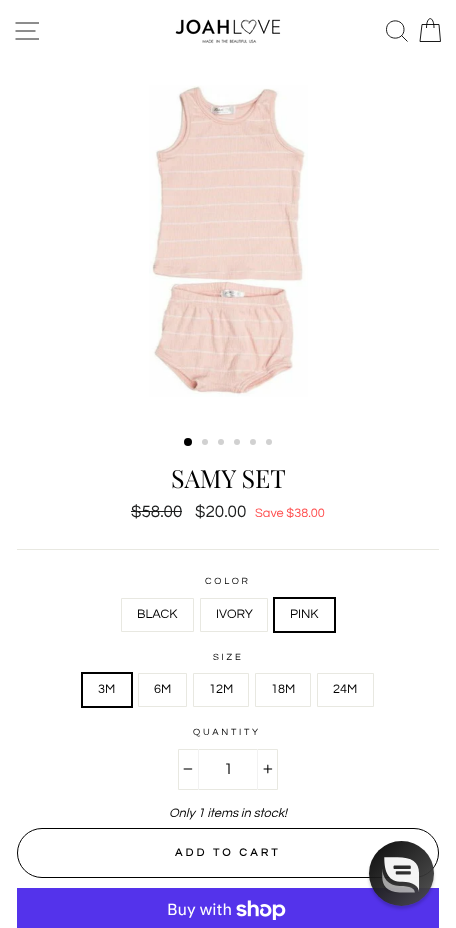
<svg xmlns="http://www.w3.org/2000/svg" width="456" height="928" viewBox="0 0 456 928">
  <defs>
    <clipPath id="clip1"><path d="M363 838H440V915H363ZM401.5 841C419.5 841 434 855.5 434 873.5C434 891.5 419.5 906 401.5 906C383.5 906 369 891.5 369 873.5C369 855.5 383.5 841 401.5 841Z" clip-rule="evenodd"/></clipPath>
    <linearGradient id="g1" gradientUnits="userSpaceOnUse" x1="369" y1="841" x2="434" y2="906"><stop offset="0" stop-color="#000" stop-opacity="0.95"/><stop offset="1" stop-color="#4d4d4d" stop-opacity="0.95"/></linearGradient>
  </defs>
  <rect width="100%" height="100%" fill="#fff"/>
  <path d="M15.5 23H39M15.5 31H35.5M15.5 39H39" fill="none" stroke="#000" stroke-width="0.9"/>
  <image x="175" y="19" width="106" height="25" href="img/1.png"/>
  <path d="M404 29.5C404 41 386.5 41 386.5 29.5C386.5 18 404 18 404 29.5ZM407.5 41.5L401.5 35.5M426.5 28C426.5 15.5 434 15.5 434 28M422 24.5H439L440.5 41.5H420Z" fill="none" stroke="#000" stroke-width="0.9"/>
  <image x="149" y="85" width="159" height="312" href="img/2.png"/>
  <circle cx="188" cy="442" r="4" fill="#000"/>
  <circle cx="205" cy="442" r="3" fill="#d1d1d1"/>
  <circle cx="221" cy="442" r="3" fill="#d1d1d1"/>
  <circle cx="237" cy="442" r="3" fill="#d1d1d1"/>
  <circle cx="253" cy="442" r="3" fill="#d1d1d1"/>
  <circle cx="269" cy="442" r="3" fill="#d1d1d1"/>
  <path d="M131 511h51v1H131z" fill="#1c1d1d"/>
  <path d="M17 549h422v1H17z" fill="#e8e8e1"/>
  <path d="M121.5 598.5h72v33H121.5z" fill="none" stroke="#e8e8e1"/>
  <path d="M200.5 598.5h67v33H200.5z" fill="none" stroke="#e8e8e1"/>
  <path d="M274 598h61v34H274z" fill="none" stroke="#000" stroke-width="2"/>
  <path d="M82 673h50v34H82z" fill="none" stroke="#000" stroke-width="2"/>
  <path d="M138.5 673.5h48v33H138.5z" fill="none" stroke="#e8e8e1"/>
  <path d="M193.5 673.5h55v33H193.5z" fill="none" stroke="#e8e8e1"/>
  <path d="M255.5 673.5h55v33H255.5z" fill="none" stroke="#e8e8e1"/>
  <path d="M317.5 673.5h56v33H317.5z" fill="none" stroke="#e8e8e1"/>
  <path d="M178.5 749.5h99v40H178.5z" fill="none" stroke="#e8e8e1"/>
  <path d="M198 749h1v41H198z" fill="#f2f2f2"/>
  <image x="183" y="768" width="10" height="2" href="img/3.png"/>
  <path d="M257 749h1v41H257z" fill="#f2f2f2"/>
  <image x="263" y="764" width="10" height="10" href="img/4.png"/>
  <rect x="17.5" y="828.5" width="421" height="49" rx="24.5" fill="none" stroke="#000"/>
  <path d="M17 888h422v40H17z" fill="#5433eb"/>
  <image x="236" y="900" width="50" height="20" href="img/5.png"/>
  <g clip-path="url(#clip1)">
    <rect x="369" y="844" width="65" height="65" rx="32.5" fill="#00000030" filter="blur(1.5px)"/>
  </g>
  <circle cx="401.5" cy="873.5" r="32.5" fill="url(#g1)"/>
  <image x="382" y="857" width="38" height="36" href="img/6.png"/>
  <text x="171" y="488" font-family="Playfair Display" font-size="25" fill="#000">SAMY SET</text>
  <g font-family="Questrial" font-size="17" fill="#1c1d1d">
    <text x="131" y="517">$58.00</text>
    <text x="195" y="517">$20.00</text>
  </g>
  <text x="255" y="517" font-family="Questrial" font-size="12.75" fill="#ff4e4e">Save $38.00</text>
  <text x="205" y="584" font-family="Questrial" font-size="9.5" letter-spacing="2.75" fill="#000">COLOR</text>
  <g font-family="Questrial" font-size="12.75" fill="#000">
    <text x="137" y="618">BLACK</text>
    <text x="216" y="618">IVORY</text>
    <text x="290" y="618">PINK</text>
  </g>
  <text x="213" y="660" font-family="Questrial" font-size="9.5" letter-spacing="2.75" fill="#000">SIZE</text>
  <g font-family="Questrial" font-size="12.75" fill="#000">
    <text x="98" y="693">3M</text>
    <text x="154" y="693">6M</text>
    <text x="209" y="693">12M</text>
    <text x="271" y="693">18M</text>
    <text x="333" y="693">24M</text>
  </g>
  <text x="193" y="735" font-family="Questrial" font-size="9.5" letter-spacing="2.75" fill="#000">QUANTITY</text>
  <text x="224" y="774" font-family="Questrial" font-size="16" fill="#000">1</text>
  <text x="169" y="817" font-family="Questrial" font-size="12.75" font-style="italic" fill="#000">Only 1 items in stock!</text>
  <text x="175" y="856" font-family="Questrial" font-size="11" font-weight="bold" letter-spacing="3.25" fill="#000">ADD TO CART</text>
  <text x="167" y="915" font-family="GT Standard" font-size="16" fill="#fff">Buy with</text>
</svg>
